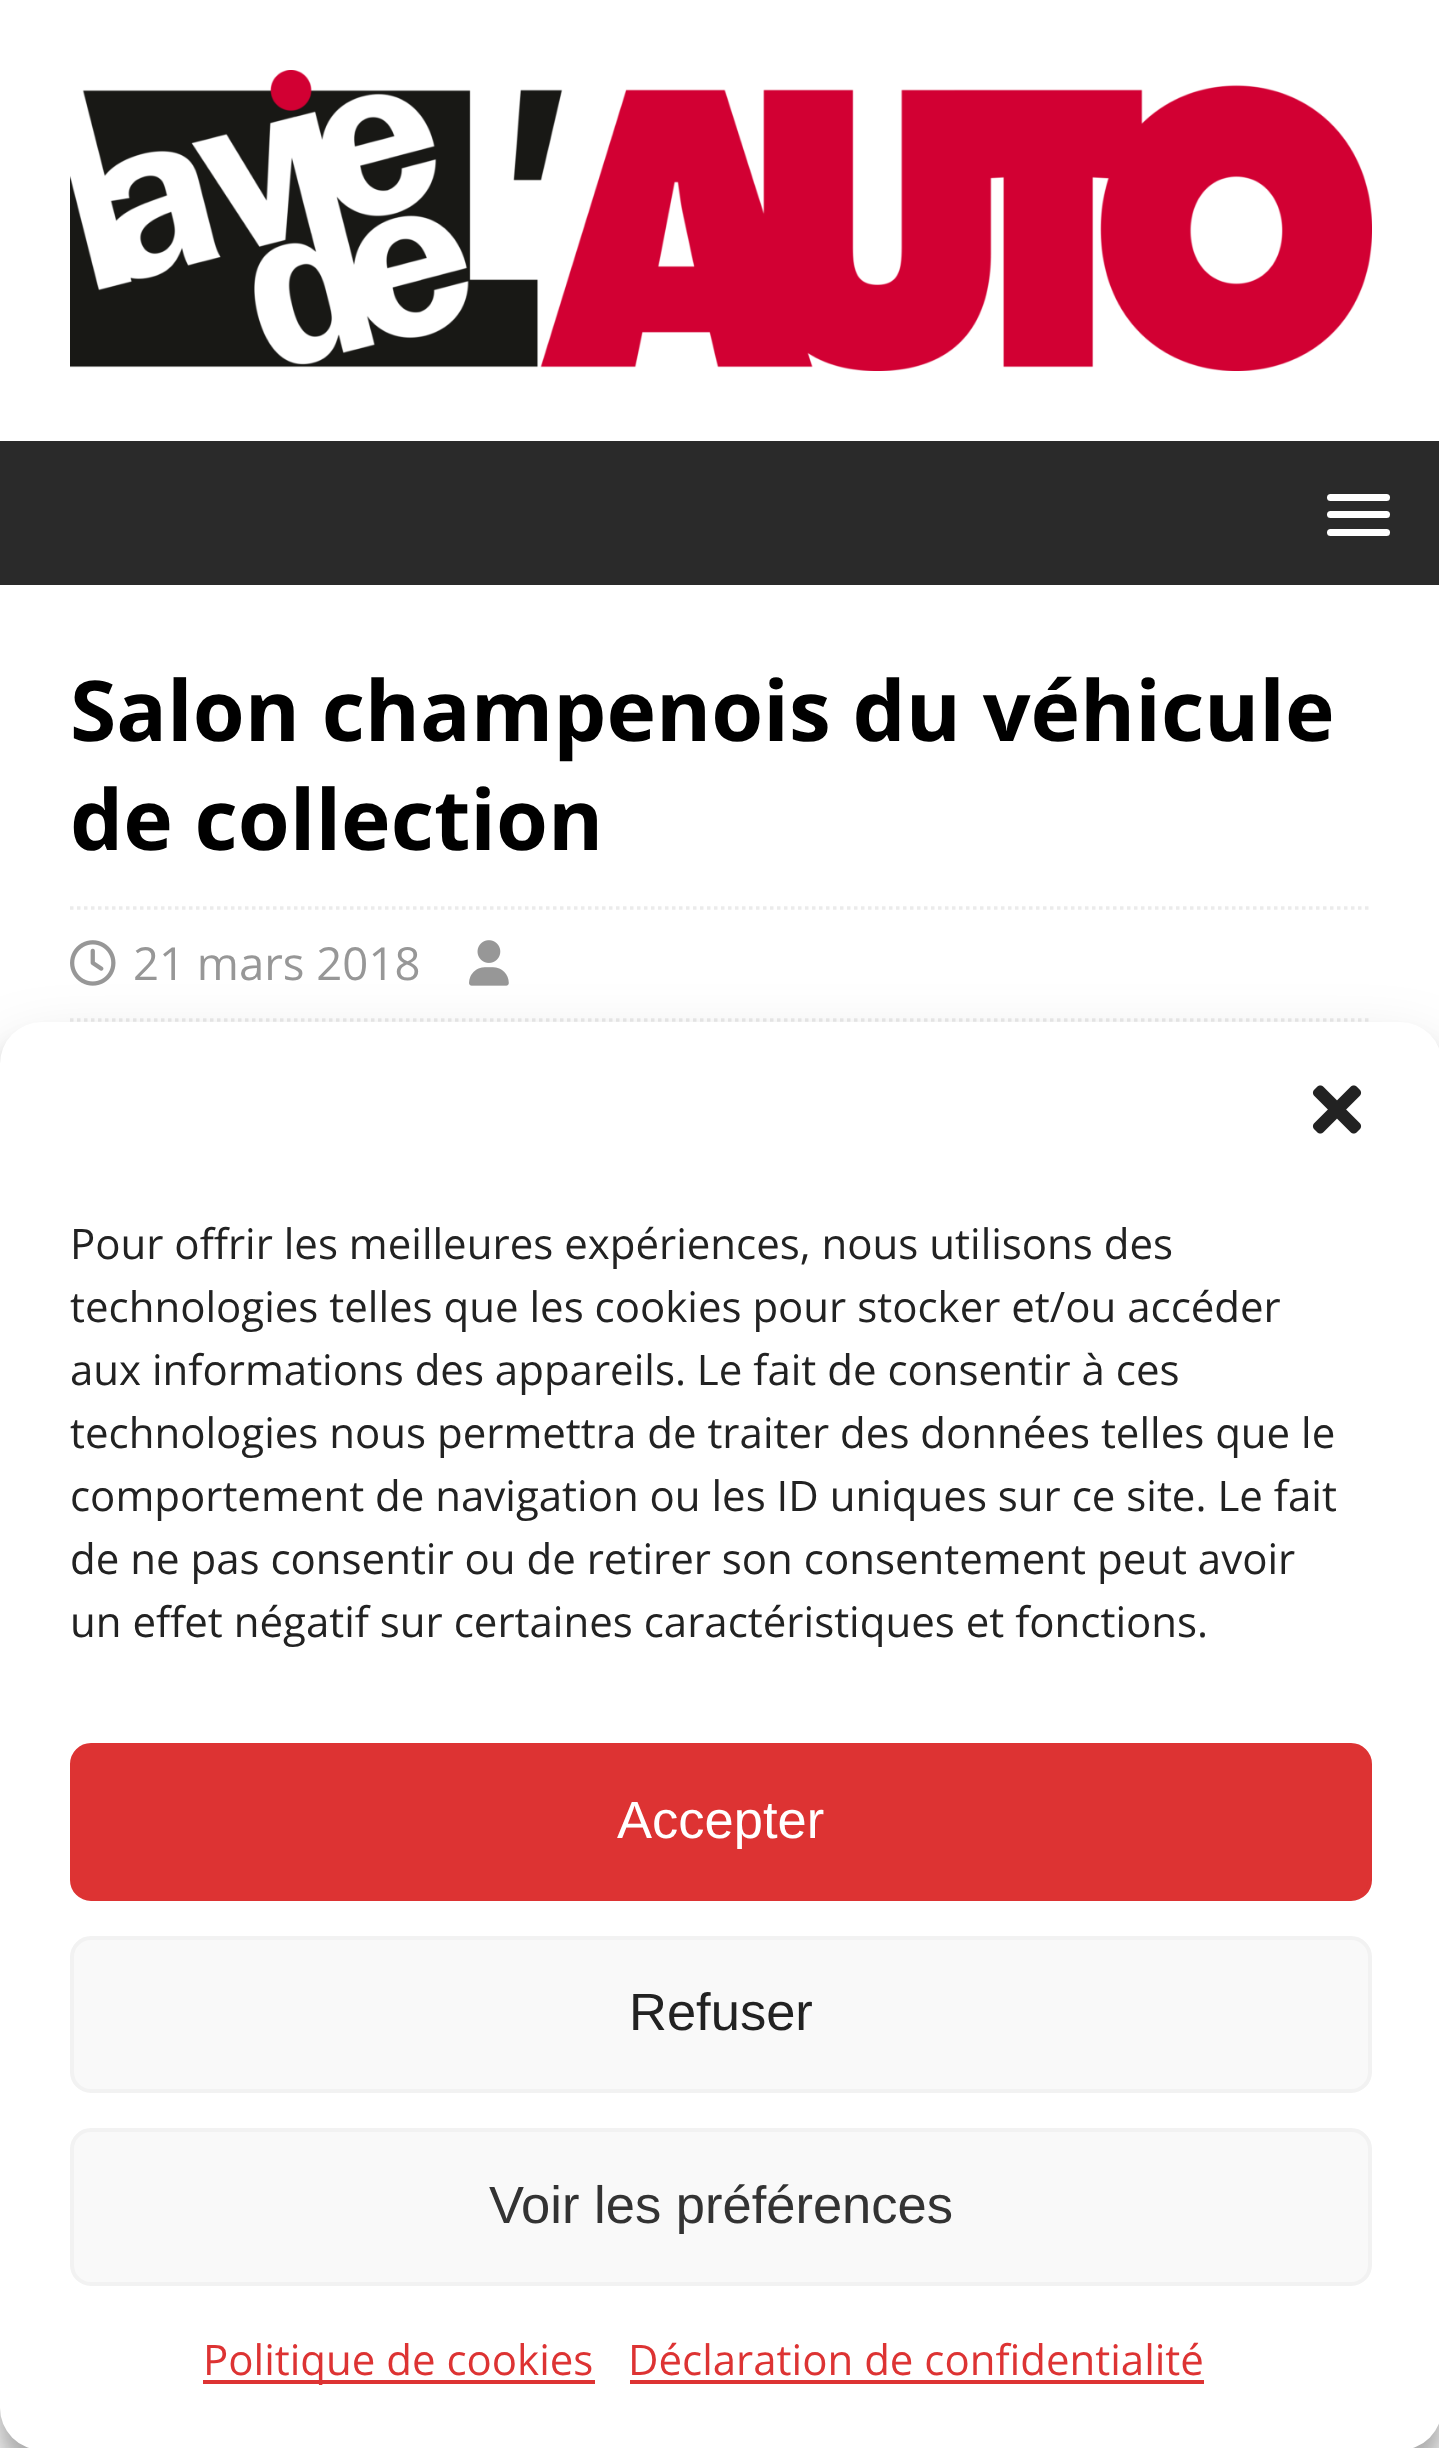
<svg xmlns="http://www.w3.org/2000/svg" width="1439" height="2448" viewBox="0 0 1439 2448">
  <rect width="100%" height="100%" fill="#fff"/>
  <image x="70" y="70" width="1302" height="301" href="img/1.png"/>
  <path d="M0 441h1439v144H0z" fill="#2a2a2a"/>
  <rect x="1327" y="494" width="63" height="7" rx="3.5" fill="#fff"/>
  <rect x="1327" y="511" width="63" height="7" rx="3.5" fill="#fff"/>
  <rect x="1327" y="529" width="63" height="7" rx="3.5" fill="#fff"/>
  <path d="M70 908H1372" fill="none" stroke="#ebebeb" stroke-width="3.5" stroke-dasharray="3.5 3.5"/>
  <path d="M70 1020H1372" fill="none" stroke="#ebebeb" stroke-width="3.5" stroke-dasharray="3.5 3.5"/>
  <image x="70" y="940" width="46" height="46" href="img/2.png"/>
  <image x="469" y="940" width="40" height="46" href="img/3.png"/>
  <rect y="1043" width="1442" height="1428" rx="42" fill="#0000003b" filter="blur(10.5px)"/>
  <rect y="1057" width="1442" height="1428" rx="42" fill="#00000030" filter="blur(35px)"/>
  <rect y="1022" width="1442" height="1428" rx="42" fill="#fff"/>
  <image x="1312" y="1085" width="50" height="49" href="img/4.png"/>
  <rect x="72" y="1745" width="1298" height="154" rx="19" fill="#d33" stroke="#d33" stroke-width="4"/>
  <rect x="72" y="1938" width="1298" height="153" rx="19" fill="#f9f9f9" stroke="#f2f2f2" stroke-width="4"/>
  <rect x="72" y="2130" width="1298" height="154" rx="19" fill="#f9f9f9" stroke="#f2f2f2" stroke-width="4"/>
  <path d="M203 2380h392v4H203z" fill="#d33"/>
  <path d="M630 2380h574v4H630z" fill="#d33"/>
  <g font-family="Open Sans" font-size="84" font-weight="bold" fill="#000">
    <text x="70" y="741">Salon champenois du véhicule</text>
    <text x="70" y="850">de collection</text>
  </g>
  <text x="133" y="980" font-family="Open Sans" font-size="45.5" fill="#979797">21 mars 2018</text>
  <g font-family="Open Sans" font-size="42" fill="#222">
    <text x="70" y="1259">Pour offrir les meilleures expériences, nous utilisons des</text>
    <text x="70" y="1322">technologies telles que les cookies pour stocker et/ou accéder</text>
    <text x="70" y="1385">aux informations des appareils. Le fait de consentir à ces</text>
    <text x="70" y="1448">technologies nous permettra de traiter des données telles que le</text>
    <text x="70" y="1511">comportement de navigation ou les ID uniques sur ce site. Le fait</text>
    <text x="70" y="1574">de ne pas consentir ou de retirer son consentement peut avoir</text>
    <text x="70" y="1637">un effet négatif sur certaines caractéristiques et fonctions.</text>
  </g>
  <text x="617" y="1838" font-family="Liberation Sans" font-size="52.5" fill="#fff">Accepter</text>
  <text x="629" y="2030" font-family="Liberation Sans" font-size="52.5" fill="#222">Refuser</text>
  <text x="489" y="2223" font-family="Liberation Sans" font-size="52.5" fill="#333">Voir les préférences</text>
  <g font-family="Open Sans" font-size="42" fill="#d33">
    <text x="203" y="2375">Politique de cookies</text>
    <text x="628" y="2375">Déclaration de confidentialité</text>
  </g>
</svg>
